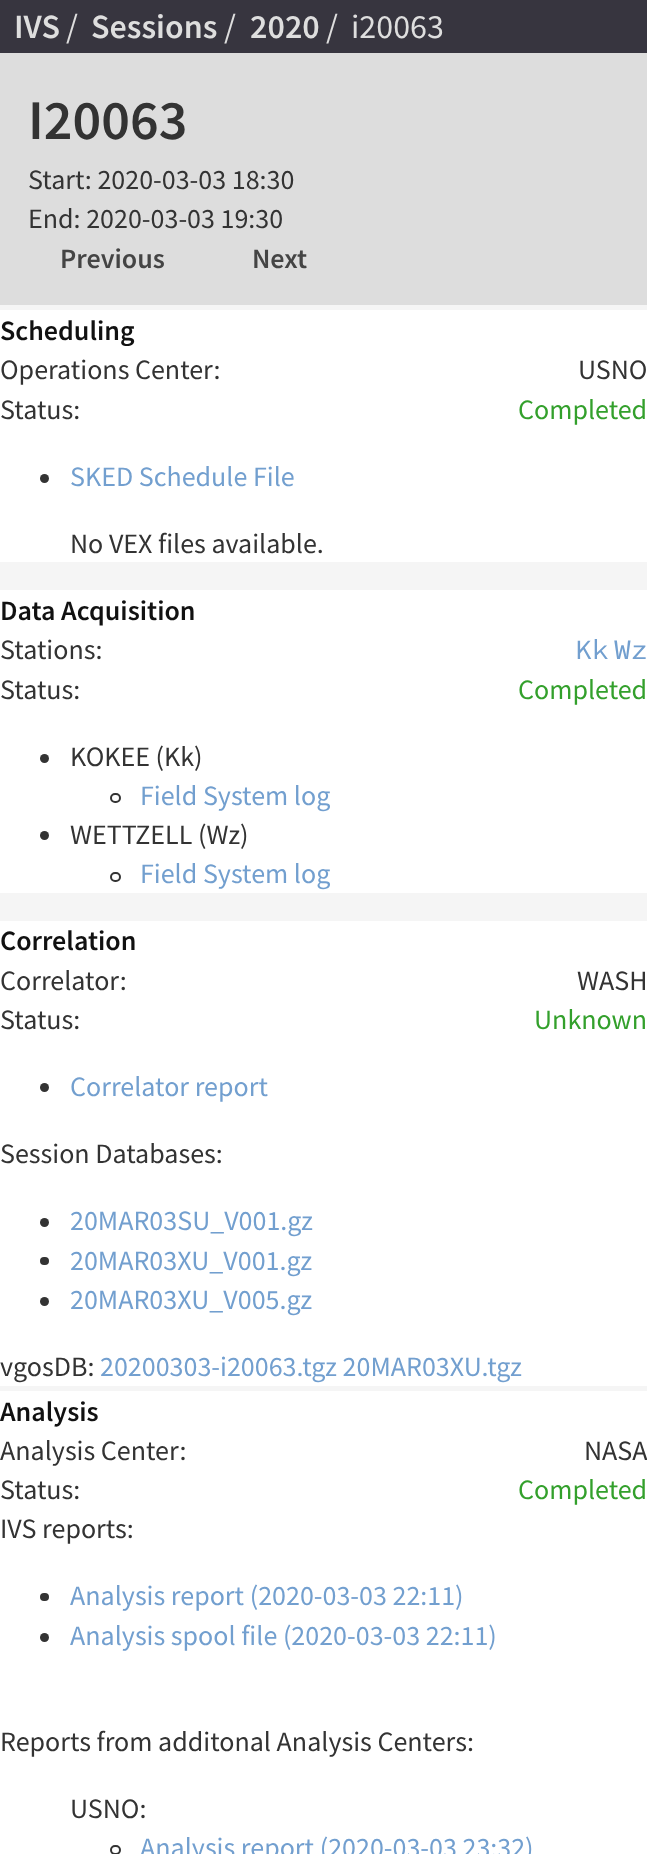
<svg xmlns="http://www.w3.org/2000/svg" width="647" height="1854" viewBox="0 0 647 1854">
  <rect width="100%" height="100%" fill="#f5f5f5"/>
  <path d="M0 0h647v53H0z" fill="#37353f"/>
  <path d="M0 53h647v252H0z" fill="#ddd"/>
  <path d="M0 310h647v252H0z" fill="#fff"/>
  <circle cx="44.5" cy="478.5" r="4.5" fill="#333"/>
  <path d="M0 590h647v303H0z" fill="#fff"/>
  <circle cx="44.5" cy="758.5" r="4.5" fill="#333"/>
  <rect x="111" y="794" width="9" height="8" rx="4" fill="none" stroke="#333" stroke-width="2"/>
  <circle cx="44.5" cy="835.5" r="4.5" fill="#333"/>
  <rect x="111" y="873" width="9" height="8" rx="4" fill="none" stroke="#333" stroke-width="2"/>
  <path d="M0 921h647v465H0z" fill="#fff"/>
  <circle cx="44.5" cy="1087.5" r="4.5" fill="#333"/>
  <circle cx="44.5" cy="1222.5" r="4.5" fill="#333"/>
  <rect x="40" y="1257" width="9" height="8" rx="4" fill="#333"/>
  <circle cx="44.5" cy="1301.5" r="4.5" fill="#333"/>
  <path d="M0 1391h647v463H0z" fill="#fff"/>
  <rect x="40" y="1593" width="9" height="8" rx="4" fill="#333"/>
  <circle cx="44.5" cy="1637.5" r="4.5" fill="#333"/>
  <rect x="111" y="1846" width="9" height="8" rx="4" fill="none" stroke="#333" stroke-width="2"/>
  <text x="14" y="38" font-family="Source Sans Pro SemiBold" font-size="34" font-weight="600" fill="#dedede">IVS</text>
  <text x="66" y="38" font-family="Source Sans Pro" font-size="34" fill="#dedede">/</text>
  <text x="91" y="38" font-family="Source Sans Pro SemiBold" font-size="34" font-weight="600" fill="#dedede">Sessions</text>
  <text x="224" y="38" font-family="Source Sans Pro" font-size="34" fill="#dedede">/</text>
  <text x="250" y="38" font-family="Source Sans Pro SemiBold" font-size="34" font-weight="600" fill="#dedede">2020</text>
  <g font-family="Source Sans Pro" font-size="34" fill="#dedede">
    <text x="326" y="38">/</text>
    <text x="351" y="38">i20063</text>
  </g>
  <text x="28" y="139" font-family="Source Sans Pro SemiBold" font-size="56" font-weight="600" fill="#333">I20063</text>
  <g font-family="Source Sans Pro" font-size="28" fill="#333">
    <text x="28" y="189">Start: 2020-03-03 18:30</text>
    <text x="28" y="228">End: 2020-03-03 19:30</text>
  </g>
  <g font-family="Source Sans Pro SemiBold" font-size="28" font-weight="600" fill="#444">
    <text x="60" y="268">Previous</text>
    <text x="252" y="268">Next</text>
  </g>
  <text x="0" y="340" font-family="Source Sans Pro SemiBold" font-size="28" font-weight="600" fill="#111">Scheduling</text>
  <g font-family="Source Sans Pro" font-size="28" fill="#333">
    <text x="0" y="379">Operations Center:</text>
    <text x="578" y="379">USNO</text>
    <text x="0" y="419">Status:</text>
  </g>
  <text x="518" y="419" font-family="Source Sans Pro" font-size="28" fill="#33a02c">Completed</text>
  <text x="70" y="486" font-family="Source Sans Pro" font-size="28" fill="#729fcf">SKED Schedule File</text>
  <text x="70" y="553" font-family="Source Sans Pro" font-size="28" fill="#333">No VEX files available.</text>
  <text x="0" y="620" font-family="Source Sans Pro SemiBold" font-size="28" font-weight="600" fill="#111">Data Acquisition</text>
  <text x="0" y="659" font-family="Source Sans Pro" font-size="28" fill="#333">Stations:</text>
  <g font-family="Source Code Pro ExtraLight" font-size="28" font-weight="200" fill="#729fcf">
    <text x="575" y="659">Kk</text>
    <text x="614" y="659">Wz</text>
  </g>
  <text x="0" y="699" font-family="Source Sans Pro" font-size="28" fill="#333">Status:</text>
  <text x="518" y="699" font-family="Source Sans Pro" font-size="28" fill="#33a02c">Completed</text>
  <text x="70" y="766" font-family="Source Sans Pro" font-size="28" fill="#333">KOKEE (Kk)</text>
  <text x="140" y="805" font-family="Source Sans Pro" font-size="28" fill="#729fcf">Field System log</text>
  <text x="70" y="844" font-family="Source Sans Pro" font-size="28" fill="#333">WETTZELL (Wz)</text>
  <text x="140" y="883" font-family="Source Sans Pro" font-size="28" fill="#729fcf">Field System log</text>
  <text x="0" y="950" font-family="Source Sans Pro SemiBold" font-size="28" font-weight="600" fill="#111">Correlation</text>
  <g font-family="Source Sans Pro" font-size="28" fill="#333">
    <text x="0" y="990">Correlator:</text>
    <text x="577" y="990">WASH</text>
    <text x="0" y="1029">Status:</text>
  </g>
  <text x="534" y="1029" font-family="Source Sans Pro" font-size="28" fill="#33a02c">Unknown</text>
  <text x="70" y="1096" font-family="Source Sans Pro" font-size="28" fill="#729fcf">Correlator report</text>
  <text x="0" y="1163" font-family="Source Sans Pro" font-size="28" fill="#333">Session Databases:</text>
  <g font-family="Source Sans Pro" font-size="28" fill="#729fcf">
    <text x="70" y="1230">20MAR03SU_V001.gz</text>
    <text x="70" y="1270">20MAR03XU_V001.gz</text>
    <text x="70" y="1309">20MAR03XU_V005.gz</text>
  </g>
  <text x="0" y="1376" font-family="Source Sans Pro" font-size="28" fill="#333">vgosDB:</text>
  <text x="100" y="1376" font-family="Source Sans Pro" font-size="28" fill="#729fcf">20200303-i20063.tgz 20MAR03XU.tgz</text>
  <text x="0" y="1421" font-family="Source Sans Pro SemiBold" font-size="28" font-weight="600" fill="#111">Analysis</text>
  <g font-family="Source Sans Pro" font-size="28" fill="#333">
    <text x="0" y="1460">Analysis Center:</text>
    <text x="584" y="1460">NASA</text>
    <text x="0" y="1499">Status:</text>
  </g>
  <text x="518" y="1499" font-family="Source Sans Pro" font-size="28" fill="#33a02c">Completed</text>
  <text x="0" y="1538" font-family="Source Sans Pro" font-size="28" fill="#333">IVS reports:</text>
  <g font-family="Source Sans Pro" font-size="28" fill="#729fcf">
    <text x="70" y="1605">Analysis report (2020-03-03 22:11)</text>
    <text x="70" y="1645">Analysis spool file (2020-03-03 22:11)</text>
  </g>
  <g font-family="Source Sans Pro" font-size="28" fill="#333">
    <text x="0" y="1751">Reports from additonal Analysis Centers:</text>
    <text x="70" y="1818">USNO:</text>
  </g>
  <text x="140" y="1857" font-family="Source Sans Pro" font-size="28" fill="#729fcf">Analysis report (2020-03-03 23:32)</text>
</svg>
